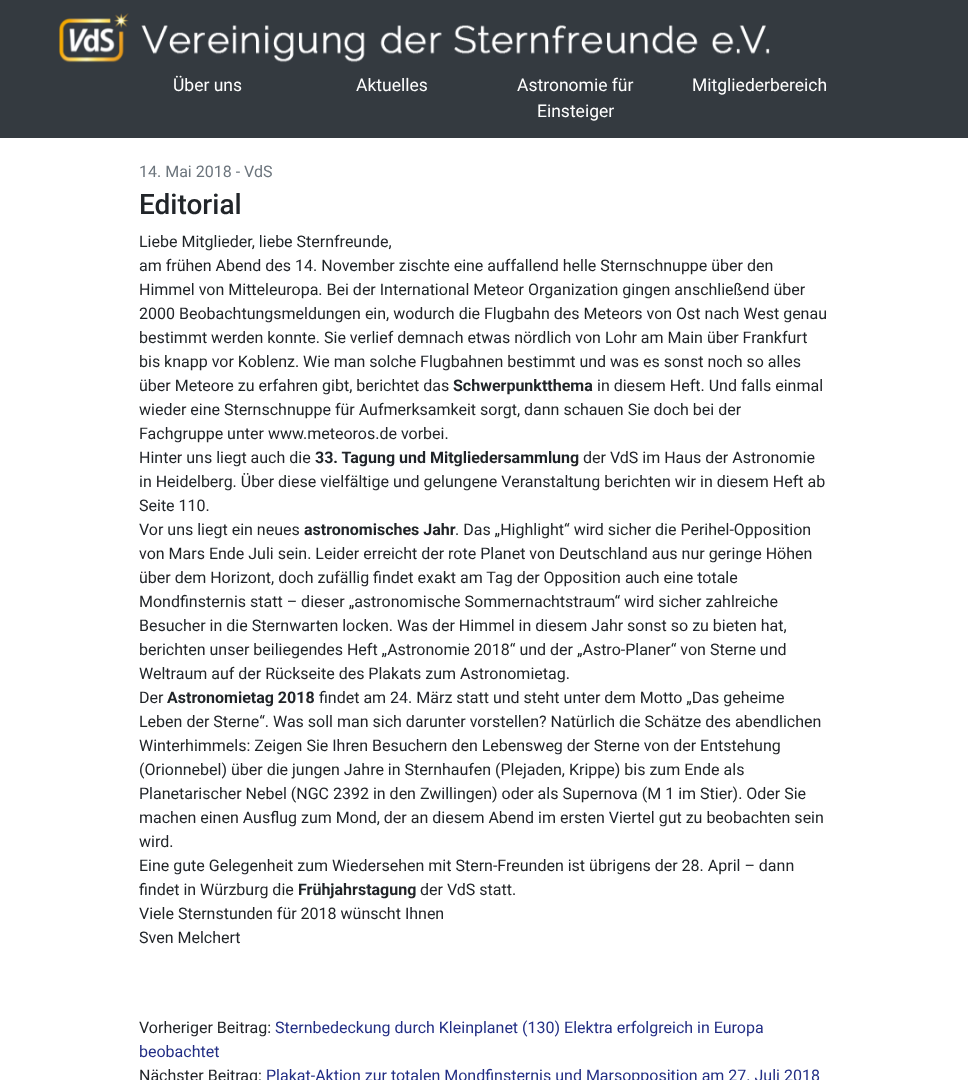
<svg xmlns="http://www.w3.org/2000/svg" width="968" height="1080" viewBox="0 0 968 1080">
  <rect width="100%" height="100%" fill="#fff"/>
  <path d="M0 0h968v138H0z" fill="#343a40"/>
  <image x="59" y="13" width="711" height="50" href="img/1.png"/>
  <g font-family="Roboto" font-size="17.5" fill="#fff">
    <text x="173" y="91">Über uns</text>
    <text x="356" y="91">Aktuelles</text>
    <text x="517" y="91">Astronomie für</text>
    <text x="537" y="117">Einsteiger</text>
    <text x="692" y="91">Mitgliederbereich</text>
  </g>
  <text x="139" y="177" font-family="Roboto" font-size="16" fill="#6c757d">14. Mai 2018 - VdS</text>
  <text x="139" y="214" font-family="Roboto" font-size="28" font-weight="500" fill="#212529">Editorial</text>
  <g font-family="Roboto" font-size="16" fill="#212529">
    <text x="139" y="247">Liebe Mitglieder, liebe Sternfreunde,</text>
    <text x="139" y="271">am frühen Abend des 14. November zischte eine auffallend helle Sternschnuppe über den</text>
    <text x="139" y="295">Himmel von Mitteleuropa. Bei der International Meteor Organization gingen anschließend über</text>
    <text x="139" y="319">2000 Beobachtungsmeldungen ein, wodurch die Flugbahn des Meteors von Ost nach West genau</text>
    <text x="139" y="343">bestimmt werden konnte. Sie verlief demnach etwas nördlich von Lohr am Main über Frankfurt</text>
    <text x="139" y="367">bis knapp vor Koblenz. Wie man solche Flugbahnen bestimmt und was es sonst noch so alles</text>
    <text x="139" y="391">über Meteore zu erfahren gibt, berichtet das</text>
  </g>
  <text x="453" y="391" font-family="Roboto" font-size="16" font-weight="bold" fill="#212529">Schwerpunktthema</text>
  <g font-family="Roboto" font-size="16" fill="#212529">
    <text x="597" y="391">in diesem Heft. Und falls einmal</text>
    <text x="139" y="415">wieder eine Sternschnuppe für Aufmerksamkeit sorgt, dann schauen Sie doch bei der</text>
    <text x="139" y="439">Fachgruppe unter www.meteoros.de vorbei.</text>
    <text x="139" y="463">Hinter uns liegt auch die</text>
  </g>
  <text x="315" y="463" font-family="Roboto" font-size="16" font-weight="bold" fill="#212529">33. Tagung und Mitgliedersammlung</text>
  <g font-family="Roboto" font-size="16" fill="#212529">
    <text x="583" y="463">der VdS im Haus der Astronomie</text>
    <text x="139" y="487">in Heidelberg. Über diese vielfältige und gelungene Veranstaltung berichten wir in diesem Heft ab</text>
    <text x="139" y="511">Seite 110.</text>
    <text x="139" y="535">Vor uns liegt ein neues</text>
  </g>
  <text x="304" y="535" font-family="Roboto" font-size="16" font-weight="bold" fill="#212529">astronomisches Jahr</text>
  <g font-family="Roboto" font-size="16" fill="#212529">
    <text x="455" y="535">. Das „Highlight“ wird sicher die Perihel-Opposition</text>
    <text x="139" y="559">von Mars Ende Juli sein. Leider erreicht der rote Planet von Deutschland aus nur geringe Höhen</text>
    <text x="139" y="583">über dem Horizont, doch zufällig findet exakt am Tag der Opposition auch eine totale</text>
    <text x="139" y="607">Mondfinsternis statt – dieser „astronomische Sommernachtstraum“ wird sicher zahlreiche</text>
    <text x="139" y="631">Besucher in die Sternwarten locken. Was der Himmel in diesem Jahr sonst so zu bieten hat,</text>
    <text x="139" y="655">berichten unser beiliegendes Heft „Astronomie 2018“ und der „Astro-Planer“ von Sterne und</text>
    <text x="139" y="679">Weltraum auf der Rückseite des Plakats zum Astronomietag.</text>
    <text x="139" y="703">Der</text>
  </g>
  <text x="167" y="703" font-family="Roboto" font-size="16" font-weight="bold" fill="#212529">Astronomietag 2018</text>
  <g font-family="Roboto" font-size="16" fill="#212529">
    <text x="319" y="703">findet am 24. März statt und steht unter dem Motto „Das geheime</text>
    <text x="139" y="727">Leben der Sterne“. Was soll man sich darunter vorstellen? Natürlich die Schätze des abendlichen</text>
    <text x="139" y="751">Winterhimmels: Zeigen Sie Ihren Besuchern den Lebensweg der Sterne von der Entstehung</text>
    <text x="139" y="775">(Orionnebel) über die jungen Jahre in Sternhaufen (Plejaden, Krippe) bis zum Ende als</text>
    <text x="139" y="799">Planetarischer Nebel (NGC 2392 in den Zwillingen) oder als Supernova (M 1 im Stier). Oder Sie</text>
    <text x="139" y="823">machen einen Ausflug zum Mond, der an diesem Abend im ersten Viertel gut zu beobachten sein</text>
    <text x="139" y="847">wird.</text>
    <text x="139" y="871">Eine gute Gelegenheit zum Wiedersehen mit Stern-Freunden ist übrigens der 28. April – dann</text>
    <text x="139" y="895">findet in Würzburg die</text>
  </g>
  <text x="298" y="895" font-family="Roboto" font-size="16" font-weight="bold" fill="#212529">Frühjahrstagung</text>
  <g font-family="Roboto" font-size="16" fill="#212529">
    <text x="420" y="895">der VdS statt.</text>
    <text x="139" y="919">Viele Sternstunden für 2018 wünscht Ihnen</text>
    <text x="139" y="943">Sven Melchert</text>
    <text x="139" y="1033">Vorheriger Beitrag:</text>
  </g>
  <g font-family="Roboto" font-size="16" fill="#222e85">
    <text x="275" y="1033">Sternbedeckung durch Kleinplanet (130) Elektra erfolgreich in Europa</text>
    <text x="139" y="1057">beobachtet</text>
  </g>
  <text x="139" y="1081" font-family="Roboto" font-size="16" fill="#212529">Nächster Beitrag:</text>
  <text x="266" y="1081" font-family="Roboto" font-size="16" fill="#222e85">Plakat-Aktion zur totalen Mondfinsternis und Marsopposition am 27. Juli 2018</text>
</svg>
